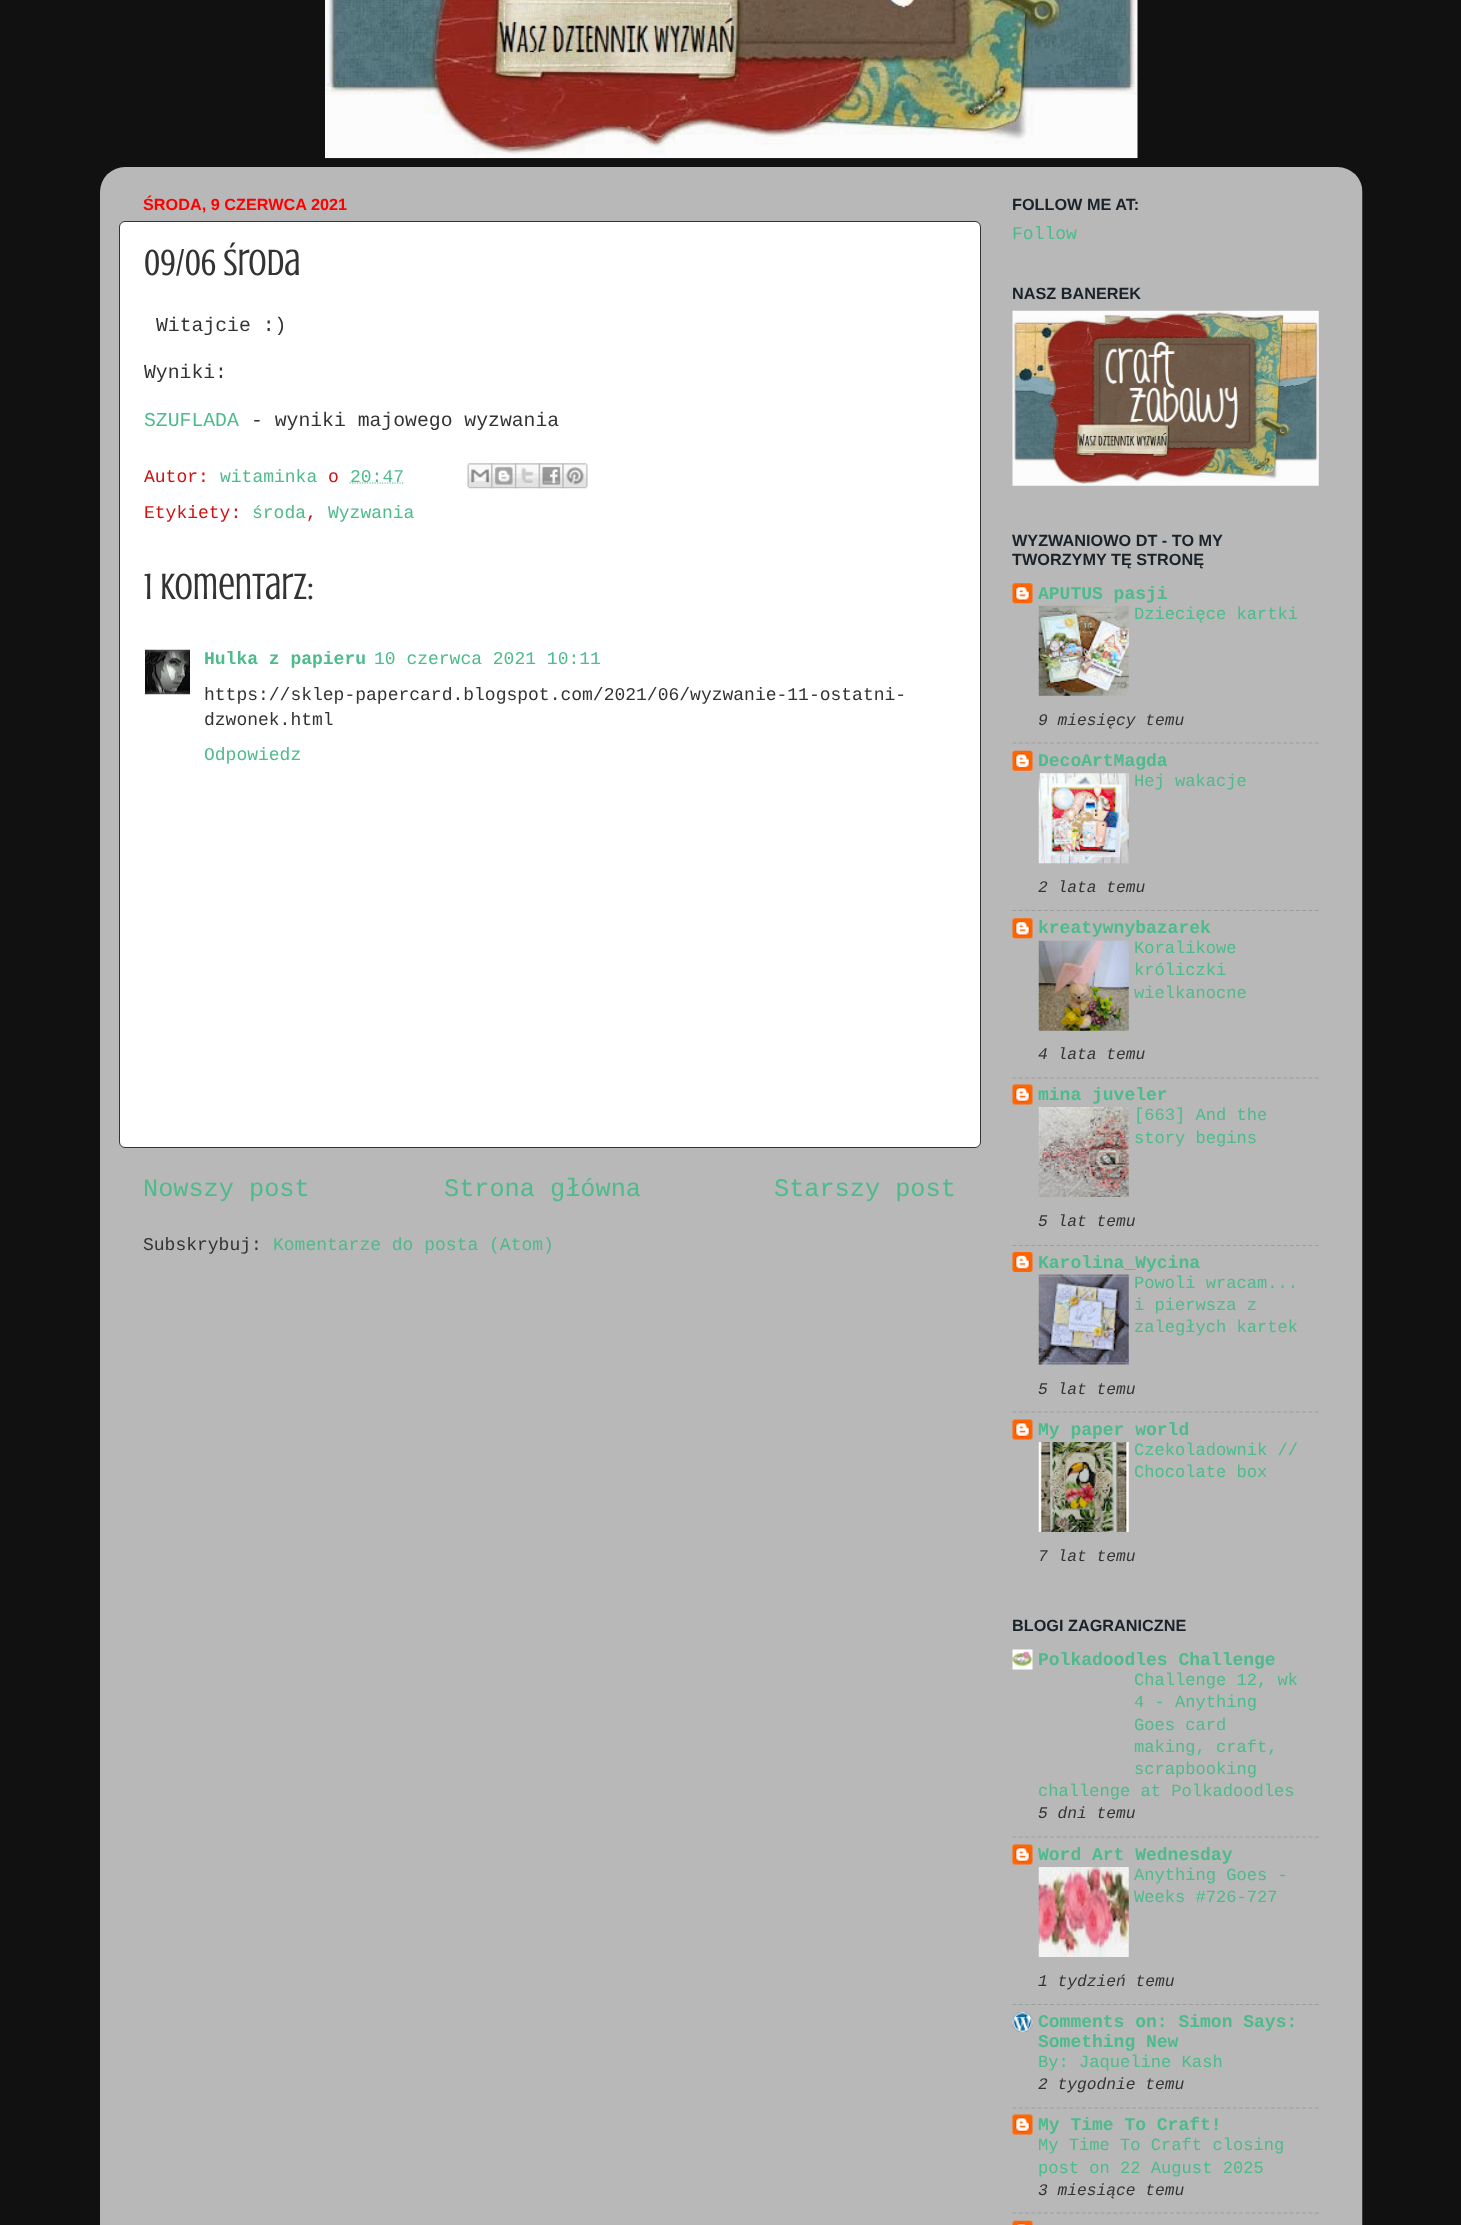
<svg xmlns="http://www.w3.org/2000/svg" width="1461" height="2225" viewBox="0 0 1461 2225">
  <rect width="100%" height="100%" fill="#111"/>
  <image x="325" y="0" width="813" height="159" href="img/1.png"/>
  <image x="100" y="167" width="1263" height="2058" href="img/2.png"/>
  <rect x="119.5" y="221.5" width="861" height="926" rx="5.5" fill="#fff" stroke="#333"/>
  <path d="M349.5 483H403.5" fill="none" stroke="#4dbb8b" stroke-width="1.2" stroke-dasharray="1.25 1.25"/>
  <image x="467" y="463" width="26" height="26" href="img/3.png"/>
  <image x="491" y="463" width="26" height="26" href="img/4.png"/>
  <image x="515" y="463" width="25" height="26" href="img/5.png"/>
  <image x="538" y="463" width="26" height="26" href="img/6.png"/>
  <image x="562" y="463" width="26" height="26" href="img/7.png"/>
  <image x="145" y="649" width="45" height="46" href="img/8.png"/>
  <image x="1012" y="310" width="307" height="176" href="img/9.png"/>
  <image x="1012" y="583" width="21" height="21" href="img/10.png"/>
  <image x="1038" y="605" width="91" height="91" href="img/11.png"/>
  <path d="M1012.5 743H1319" fill="none" stroke="#9c9c9c" stroke-width="1.2" stroke-dasharray="3.75 2.55"/>
  <image x="1012" y="750" width="21" height="21" href="img/12.png"/>
  <image x="1038" y="773" width="91" height="91" href="img/13.png"/>
  <path d="M1012.5 910.5H1319" fill="none" stroke="#9c9c9c" stroke-width="1.2" stroke-dasharray="3.75 2.55"/>
  <image x="1012" y="918" width="21" height="21" href="img/10.png"/>
  <image x="1038" y="940" width="91" height="91" href="img/14.png"/>
  <path d="M1012.5 1078H1319" fill="none" stroke="#9c9c9c" stroke-width="1.2" stroke-dasharray="3.75 2.55"/>
  <image x="1012" y="1084" width="21" height="21" href="img/15.png"/>
  <image x="1038" y="1107" width="91" height="90" href="img/16.png"/>
  <path d="M1012.5 1245.5H1319" fill="none" stroke="#9c9c9c" stroke-width="1.2" stroke-dasharray="3.75 2.55"/>
  <image x="1012" y="1252" width="21" height="20" href="img/17.png"/>
  <image x="1038" y="1274" width="91" height="91" href="img/18.png"/>
  <path d="M1012.5 1412H1319" fill="none" stroke="#9c9c9c" stroke-width="1.2" stroke-dasharray="3.75 2.55"/>
  <image x="1012" y="1419" width="21" height="21" href="img/15.png"/>
  <image x="1038" y="1442" width="91" height="90" href="img/19.png"/>
  <image x="1012" y="1649" width="21" height="21" href="img/20.png"/>
  <path d="M1012.5 1837H1319" fill="none" stroke="#9c9c9c" stroke-width="1.2" stroke-dasharray="3.75 2.55"/>
  <image x="1012" y="1844" width="21" height="21" href="img/15.png"/>
  <image x="1038" y="1867" width="91" height="90" href="img/21.png"/>
  <path d="M1012.5 2004.5H1319" fill="none" stroke="#9c9c9c" stroke-width="1.2" stroke-dasharray="3.75 2.55"/>
  <image x="1012" y="2012" width="21" height="20" href="img/22.png"/>
  <path d="M1012.5 2108H1319" fill="none" stroke="#9c9c9c" stroke-width="1.2" stroke-dasharray="3.75 2.55"/>
  <image x="1012" y="2114" width="21" height="21" href="img/15.png"/>
  <path d="M1012.5 2213H1319" fill="none" stroke="#9c9c9c" stroke-width="1.2" stroke-dasharray="3.75 2.55"/>
  <image x="1012" y="2220" width="21" height="5" href="img/23.png"/>
  <text x="143" y="210" font-family="Liberation Sans" font-size="16.25" font-weight="bold" fill="#f00">ŚRODA, 9 CZERWCA 2021</text>
  <text x="144" y="275" font-family="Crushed" font-size="37.5" fill="#333">09/06 środa</text>
  <g font-family="Liberation Mono" font-size="19.75" fill="#333">
    <text x="156" y="331">Witajcie :)</text>
    <text x="144" y="378">Wyniki:</text>
  </g>
  <text x="144" y="426" font-family="Liberation Mono" font-size="19.75" fill="#4dbb8b">SZUFLADA</text>
  <text x="251" y="426" font-family="Liberation Mono" font-size="19.75" fill="#333">- wyniki majowego wyzwania</text>
  <text x="144" y="482" font-family="Liberation Mono" font-size="18" fill="#ce1111">Autor:</text>
  <text x="220" y="482" font-family="Liberation Mono" font-size="18" fill="#4dbb8b">witaminka</text>
  <text x="328" y="482" font-family="Liberation Mono" font-size="18" fill="#ce1111">o</text>
  <text x="350" y="482" font-family="Liberation Mono" font-size="18" fill="#4dbb8b">20:47</text>
  <text x="144" y="518" font-family="Liberation Mono" font-size="18" fill="#ce1111">Etykiety:</text>
  <text x="252" y="518" font-family="Liberation Mono" font-size="18" fill="#4dbb8b">środa</text>
  <text x="306" y="518" font-family="Liberation Mono" font-size="18" fill="#ce1111">,</text>
  <text x="328" y="518" font-family="Liberation Mono" font-size="18" fill="#4dbb8b">Wyzwania</text>
  <text x="144" y="599" font-family="Crushed" font-size="37.5" fill="#333">1 komentarz:</text>
  <text x="204" y="664" font-family="Liberation Mono" font-size="18" font-weight="bold" fill="#4dbb8b">Hulka z papieru</text>
  <text x="374" y="664" font-family="Liberation Mono" font-size="18" fill="#4dbb8b">10 czerwca 2021 10:11</text>
  <g font-family="Liberation Mono" font-size="18" fill="#333">
    <text x="204" y="700">https://sklep-papercard.blogspot.com/2021/06/wyzwanie-11-ostatni-</text>
    <text x="204" y="725">dzwonek.html</text>
  </g>
  <text x="204" y="760" font-family="Liberation Mono" font-size="18" fill="#4dbb8b">Odpowiedz</text>
  <g font-family="Liberation Mono" font-size="25.25" fill="#4dbb8b">
    <text x="143" y="1196">Nowszy post</text>
    <text x="444" y="1196">Strona główna</text>
    <text x="774" y="1196">Starszy post</text>
  </g>
  <text x="143" y="1250" font-family="Liberation Mono" font-size="18" fill="#333">Subskrybuj:</text>
  <text x="273" y="1250" font-family="Liberation Mono" font-size="18" fill="#4dbb8b">Komentarze do posta (Atom)</text>
  <text x="1012" y="210" font-family="Liberation Sans" font-size="16.25" font-weight="bold" fill="#1a222a">FOLLOW ME AT:</text>
  <text x="1012" y="239" font-family="Liberation Mono" font-size="18" fill="#4dbb8b">Follow</text>
  <g font-family="Liberation Sans" font-size="16.25" font-weight="bold" fill="#1a222a">
    <text x="1012" y="299">NASZ BANEREK</text>
    <text x="1012" y="546">WYZWANIOWO DT - TO MY</text>
    <text x="1012" y="565">TWORZYMY TĘ STRONĘ</text>
  </g>
  <text x="1038" y="599" font-family="Liberation Mono" font-size="18" font-weight="bold" fill="#4dbb8b">APUTUS pasji</text>
  <text x="1134" y="619" font-family="Liberation Mono" font-size="17.1" fill="#4dbb8b">Dziecięce kartki</text>
  <text x="1038" y="725" font-family="Liberation Mono" font-size="16.25" font-style="italic" fill="#333">9 miesięcy temu</text>
  <text x="1038" y="766" font-family="Liberation Mono" font-size="18" font-weight="bold" fill="#4dbb8b">DecoArtMagda</text>
  <text x="1134" y="786" font-family="Liberation Mono" font-size="17.1" fill="#4dbb8b">Hej wakacje</text>
  <text x="1038" y="892" font-family="Liberation Mono" font-size="16.25" font-style="italic" fill="#333">2 lata temu</text>
  <text x="1038" y="933" font-family="Liberation Mono" font-size="18" font-weight="bold" fill="#4dbb8b">kreatywnybazarek</text>
  <g font-family="Liberation Mono" font-size="17.1" fill="#4dbb8b">
    <text x="1134" y="953">Koralikowe</text>
    <text x="1134" y="975">króliczki</text>
    <text x="1134" y="998">wielkanocne</text>
  </g>
  <text x="1038" y="1059" font-family="Liberation Mono" font-size="16.25" font-style="italic" fill="#333">4 lata temu</text>
  <text x="1038" y="1100" font-family="Liberation Mono" font-size="18" font-weight="bold" fill="#4dbb8b">mina juveler</text>
  <g font-family="Liberation Mono" font-size="17.1" fill="#4dbb8b">
    <text x="1134" y="1120">[663] And the</text>
    <text x="1134" y="1143">story begins</text>
  </g>
  <text x="1038" y="1226" font-family="Liberation Mono" font-size="16.25" font-style="italic" fill="#333">5 lat temu</text>
  <text x="1038" y="1268" font-family="Liberation Mono" font-size="18" font-weight="bold" fill="#4dbb8b">Karolina_Wycina</text>
  <g font-family="Liberation Mono" font-size="17.1" fill="#4dbb8b">
    <text x="1134" y="1288">Powoli wracam...</text>
    <text x="1134" y="1310">i pierwsza z</text>
    <text x="1134" y="1332">zaległych kartek</text>
  </g>
  <text x="1038" y="1394" font-family="Liberation Mono" font-size="16.25" font-style="italic" fill="#333">5 lat temu</text>
  <text x="1038" y="1435" font-family="Liberation Mono" font-size="18" font-weight="bold" fill="#4dbb8b">My paper world</text>
  <g font-family="Liberation Mono" font-size="17.1" fill="#4dbb8b">
    <text x="1134" y="1455">Czekoladownik //</text>
    <text x="1134" y="1477">Chocolate box</text>
  </g>
  <text x="1038" y="1561" font-family="Liberation Mono" font-size="16.25" font-style="italic" fill="#333">7 lat temu</text>
  <text x="1012" y="1631" font-family="Liberation Sans" font-size="16.25" font-weight="bold" fill="#1a222a">BLOGI ZAGRANICZNE</text>
  <text x="1038" y="1665" font-family="Liberation Mono" font-size="18" font-weight="bold" fill="#4dbb8b">Polkadoodles Challenge</text>
  <g font-family="Liberation Mono" font-size="17.1" fill="#4dbb8b">
    <text x="1134" y="1685">Challenge 12, wk</text>
    <text x="1134" y="1707">4 - Anything</text>
    <text x="1134" y="1730">Goes card</text>
    <text x="1134" y="1752">making, craft,</text>
    <text x="1134" y="1774">scrapbooking</text>
    <text x="1038" y="1796">challenge at Polkadoodles</text>
  </g>
  <text x="1038" y="1818" font-family="Liberation Mono" font-size="16.25" font-style="italic" fill="#333">5 dni temu</text>
  <text x="1038" y="1860" font-family="Liberation Mono" font-size="18" font-weight="bold" fill="#4dbb8b">Word Art Wednesday</text>
  <g font-family="Liberation Mono" font-size="17.1" fill="#4dbb8b">
    <text x="1134" y="1880">Anything Goes -</text>
    <text x="1134" y="1902">Weeks #726-727</text>
  </g>
  <text x="1038" y="1986" font-family="Liberation Mono" font-size="16.25" font-style="italic" fill="#333">1 tydzień temu</text>
  <g font-family="Liberation Mono" font-size="18" font-weight="bold" fill="#4dbb8b">
    <text x="1038" y="2027">Comments on: Simon Says:</text>
    <text x="1038" y="2047">Something New</text>
  </g>
  <text x="1038" y="2067" font-family="Liberation Mono" font-size="17.1" fill="#4dbb8b">By: Jaqueline Kash</text>
  <text x="1038" y="2089" font-family="Liberation Mono" font-size="16.25" font-style="italic" fill="#333">2 tygodnie temu</text>
  <text x="1038" y="2130" font-family="Liberation Mono" font-size="18" font-weight="bold" fill="#4dbb8b">My Time To Craft!</text>
  <g font-family="Liberation Mono" font-size="17.1" fill="#4dbb8b">
    <text x="1038" y="2150">My Time To Craft closing</text>
    <text x="1038" y="2173">post on 22 August 2025</text>
  </g>
  <text x="1038" y="2195" font-family="Liberation Mono" font-size="16.25" font-style="italic" fill="#333">3 miesiące temu</text>
</svg>
